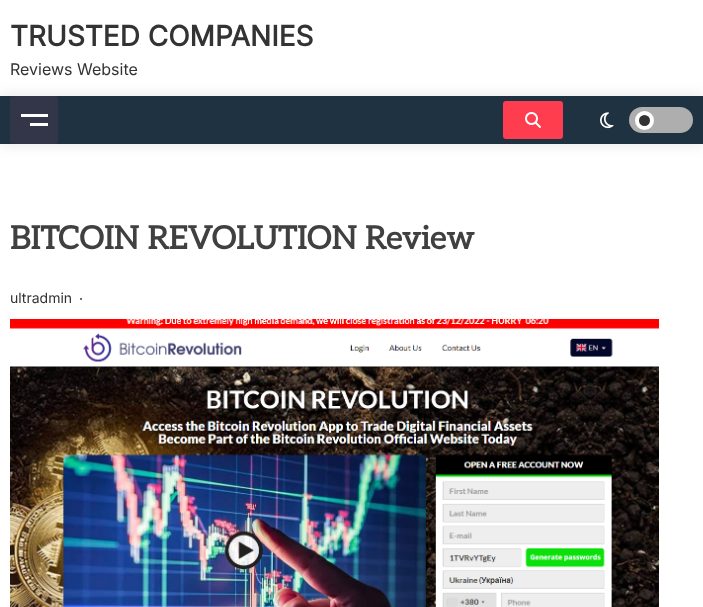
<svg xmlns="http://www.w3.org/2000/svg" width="703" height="607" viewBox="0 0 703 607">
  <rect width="100%" height="100%" fill="#fff"/>
  <path d="M0 96h703v48H0z" fill="#0000001a" filter="blur(7.5px)"/>
  <path d="M0 96h703v48H0z" fill="#1f3241"/>
  <rect x="10" y="96" width="48" height="48" rx="3" fill="#323648"/>
  <path d="M21 114h27v3H21z" fill="#fff"/>
  <path d="M30 123h18v3H30z" fill="#fff"/>
  <rect x="503" y="101" width="60" height="38" rx="3" fill="#ff3d4f"/>
  <image x="525" y="112" width="16" height="16" href="img/1.png"/>
  <image x="600" y="112" width="14" height="17" href="img/2.png"/>
  <rect x="629" y="107" width="64" height="26" rx="13" fill="#aeaeae"/>
  <circle cx="644.5" cy="120.5" r="7.5" fill="#333" stroke="#fff" stroke-width="4"/>
  <circle cx="81" cy="299" r="1" fill="#404040"/>
  <image x="10" y="319" width="649" height="288" href="img/3.png"/>
  <text x="10" y="46" font-family="Inter" font-size="28" font-weight="bold" fill="#333">TRUSTED COMPANIES</text>
  <text x="10" y="75" font-family="Inter" font-size="16" fill="#333">Reviews Website</text>
  <text x="10" y="249" font-family="Aleo" font-size="32" font-weight="bold" fill="#404040">BITCOIN REVOLUTION Review</text>
  <text x="10" y="303" font-family="Inter" font-size="14" fill="#333">ultradmin</text>
</svg>
